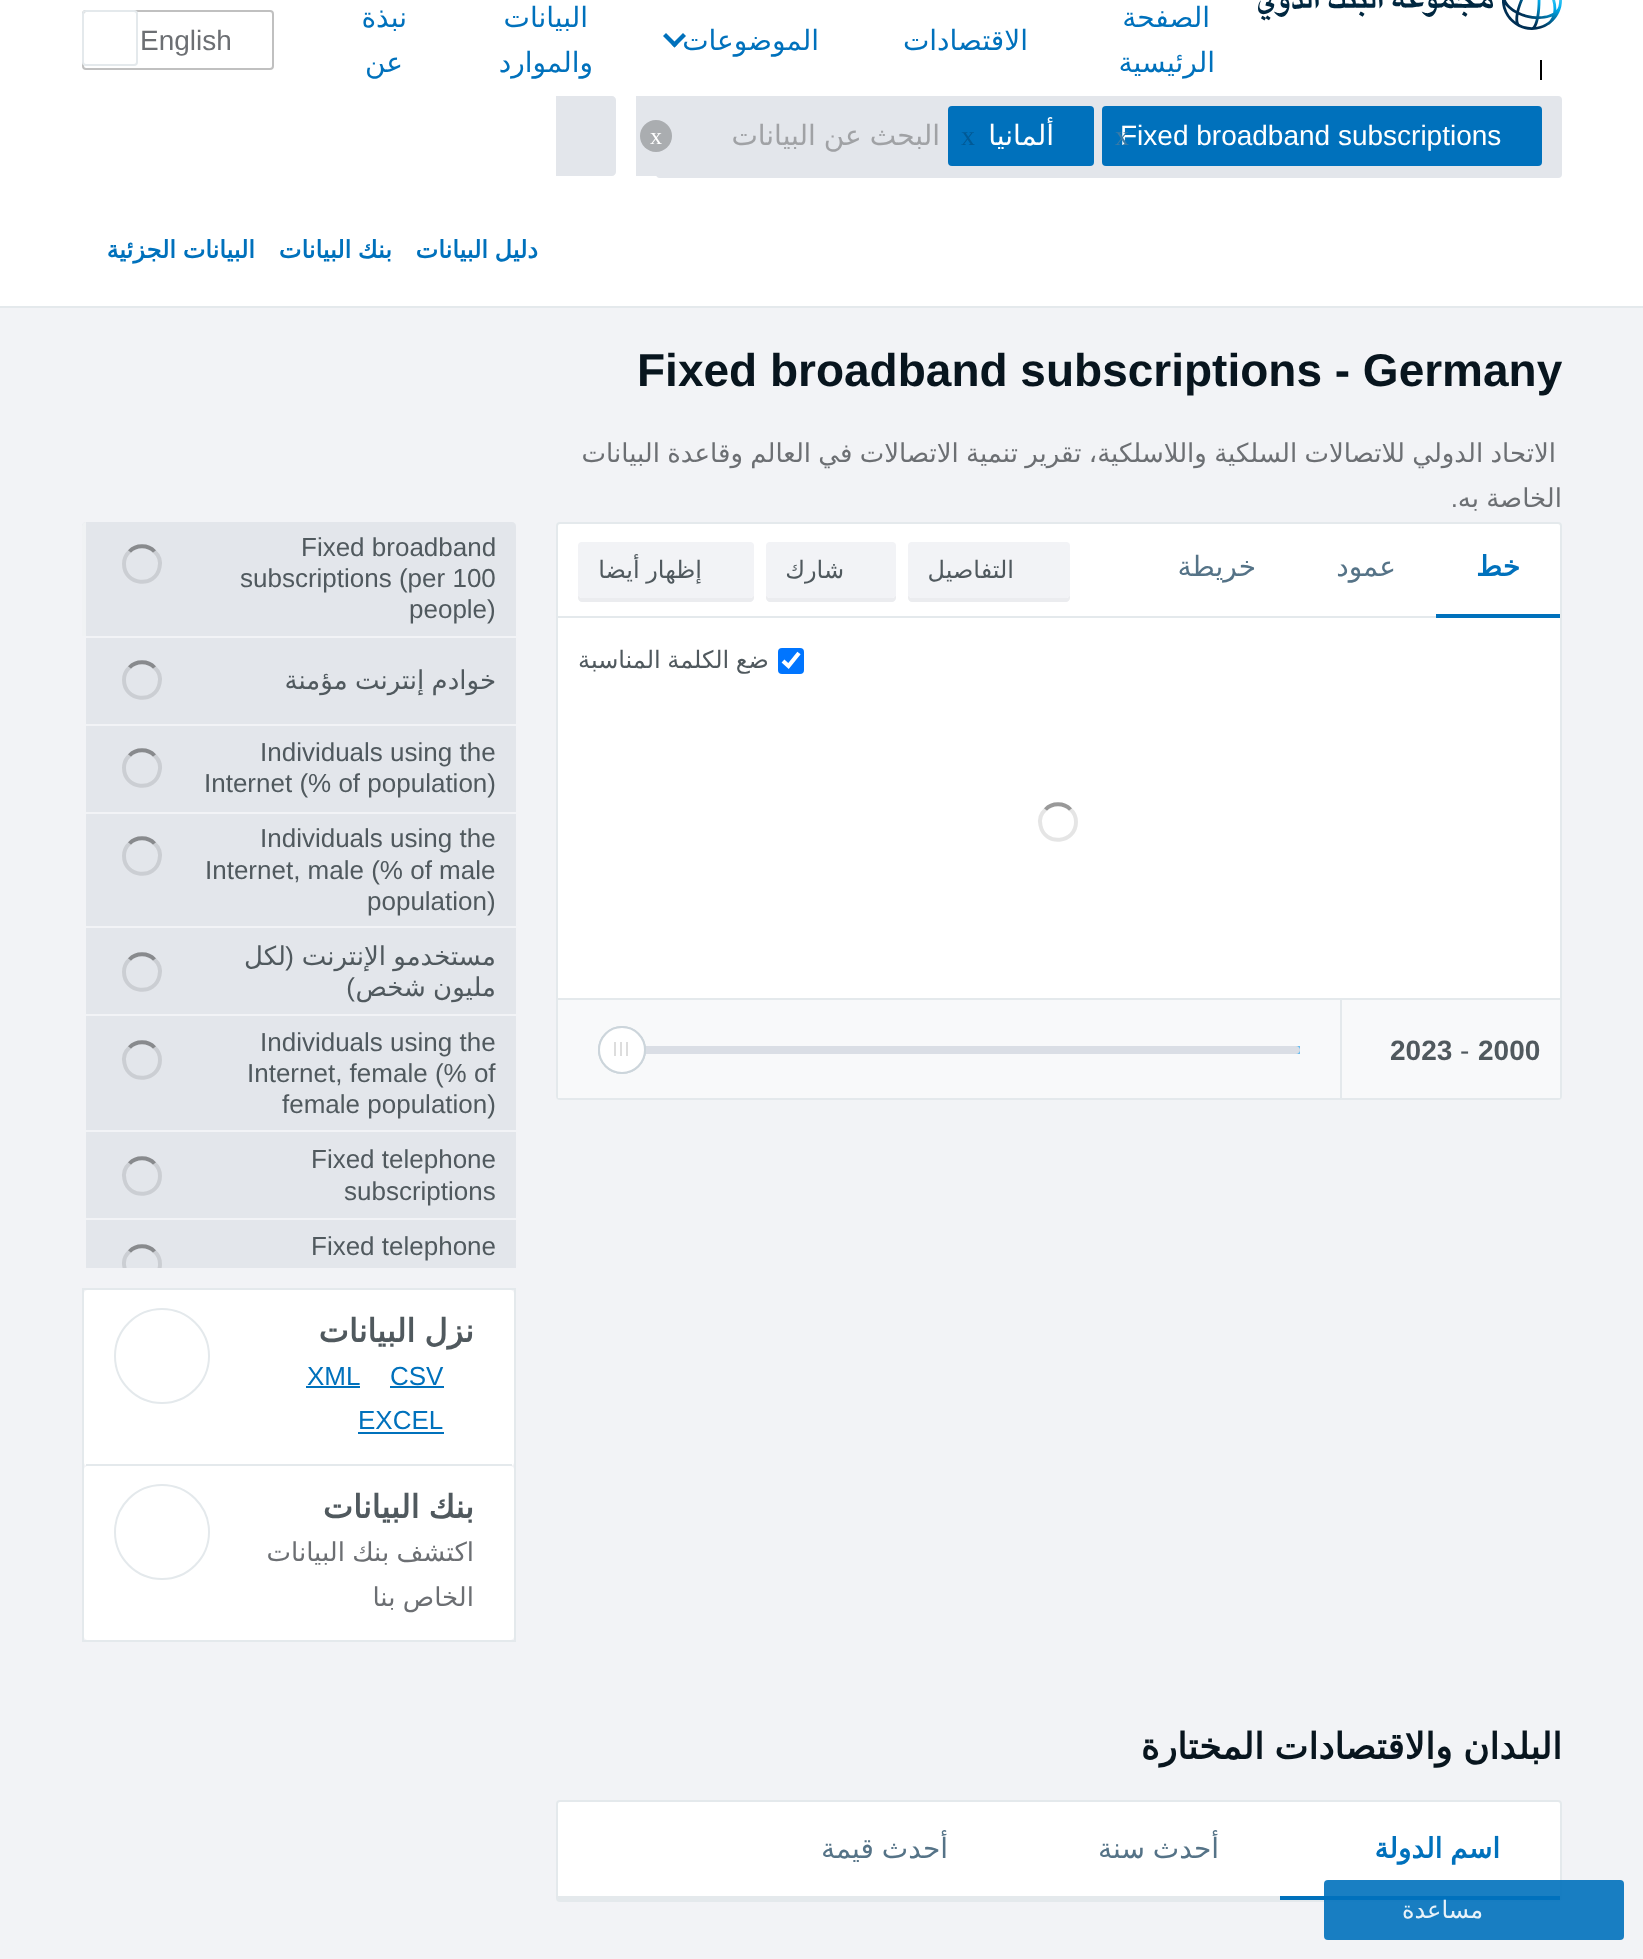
<svg xmlns="http://www.w3.org/2000/svg" width="1643" height="1959" viewBox="0 0 1643 1959">
  <defs>
    <clipPath id="clip1"><path d="M82 522h434v746H82z"/></clipPath>
  </defs>
  <rect width="100%" height="100%" fill="#f2f3f6"/>
  <path d="M0 0h1643v306H0z" fill="#fff"/>
  <image x="1258" y="0" width="304" height="30" href="img/1.png"/>
  <path d="M1540 60h2v20H1540z" fill="#000"/>
  <path d="M683 33L686 36L674.5 47.5L671.5 44.5Z" fill="#0071bc"/>
  <path d="M666 33L677.5 44.5L674.5 47.5L663 36Z" fill="#0071bc"/>
  <rect x="83" y="11" width="190" height="58" rx="3" fill="none" stroke="#c0c0c0" stroke-width="2"/>
  <path d="M0 306h1643v2H0z" fill="#e4e9ec"/>
  <rect x="656" y="96" width="906" height="82" rx="4" fill="#e3e6eb"/>
  <rect x="1102" y="106" width="440" height="60" rx="4" fill="#0071bc"/>
  <rect x="948" y="106" width="146" height="60" rx="4" fill="#0071bc"/>
  <path d="M636 96H672C674 96 676 98 676 100V172C676 174 674 176 672 176H636Z" fill="#e3e6eb"/>
  <circle cx="656" cy="136" r="16" fill="#aaadb0"/>
  <path d="M556 96H612C614 96 616 98 616 100V172C616 174 614 176 612 176H556Z" fill="#e3e6eb"/>
  <rect x="83" y="11" width="54" height="54" rx="3" fill="none" stroke="#e4e9ec" stroke-width="2"/>
  <rect x="557" y="523" width="1004" height="576" rx="3" fill="#fff" stroke="#e4e9ec" stroke-width="2"/>
  <path d="M558 616h878v2H558z" fill="#e4e9ec"/>
  <path d="M1436 614h124v4H1436z" fill="#0071bc"/>
  <path d="M908 594V598C908 600 910 602 912 602H1066C1068 602 1070 600 1070 598V594C1070 596 1068 598 1066 598H912C910 598 908 596 908 594Z" fill="#ebecef"/>
  <rect x="908" y="542" width="162" height="56" rx="4" fill="#f2f3f6"/>
  <path d="M766 594V598C766 600 768 602 770 602H892C894 602 896 600 896 598V594C896 596 894 598 892 598H770C768 598 766 596 766 594Z" fill="#ebecef"/>
  <rect x="766" y="542" width="130" height="56" rx="4" fill="#f2f3f6"/>
  <path d="M578 594V598C578 600 580 602 582 602H750C752 602 754 600 754 598V594C754 596 752 598 750 598H582C580 598 578 596 578 594Z" fill="#ebecef"/>
  <rect x="578" y="542" width="176" height="56" rx="4" fill="#f2f3f6"/>
  <rect x="778" y="648" width="26" height="26" rx="4" fill="#0075ff"/>
  <path d="M783 661L788.5 666L799 653" fill="none" stroke="#fff" stroke-width="4.2"/>
  <path d="M1045.5 809.5C1052 802.5 1064 802.5 1070.5 809.5" fill="none" stroke="#999" stroke-width="4"/>
  <path d="M1070.5 809.5C1074 812.5 1076 817.5 1076 822C1076 843.5 1044.5 846.5 1040.5 825.5C1039 819.5 1041 813.5 1045.5 809.5" fill="none" stroke="#0000001a" stroke-width="4"/>
  <path d="M558 1000h1002v98H558z" fill="#f8f9fa"/>
  <path d="M558 998h1002v2H558z" fill="#e4e9ec"/>
  <path d="M1340 1000h2v98H1340z" fill="#e4e9ec"/>
  <path d="M1296 1046h4v8H1296z" fill="#6cbef0"/>
  <path d="M598 1046H1296C1298 1046 1300 1048 1300 1050C1300 1052 1298 1054 1296 1054H598Z" fill="#dadee5"/>
  <circle cx="622" cy="1050" r="23" fill="none" stroke="#ccd5db" stroke-width="2"/>
  <circle cx="622" cy="1050" r="23" fill="#fff" stroke="#ccd5db" stroke-width="2"/>
  <path d="M626 1042h2v14H626z" fill="#ddd"/>
  <path d="M614 1042h2v14H614z" fill="#ddd"/>
  <path d="M620 1042h2v14H620z" fill="#ddd"/>
  <path d="M86 522H512C514 522 516 524 516 526V636H82V526C82 524 84 522 86 522Z" fill="#e3e6eb"/>
  <path d="M86 522V636H82V526C82 524 84 522 86 522Z" fill="#f0f2f4"/>
  <path d="M129.5 551.5C136 544.5 148 544.5 154.5 551.5" fill="none" stroke="#888a8d" stroke-width="4"/>
  <path d="M154.5 551.5C159 555.5 161 561.5 159.5 567.5C155.5 588.5 124 585.5 124 564C124 559.5 126 554.5 129.5 551.5" fill="none" stroke="#0000001a" stroke-width="4"/>
  <path d="M86 638h430v86H86z" fill="#e3e6eb"/>
  <path d="M129.5 667.5C136 660.5 148 660.5 154.5 667.5" fill="none" stroke="#888a8d" stroke-width="4"/>
  <path d="M154.5 667.5C159 671.5 161 677.5 159.5 683.5C155.5 704.5 124 701.5 124 680C124 675.5 126 670.5 129.5 667.5" fill="none" stroke="#0000001a" stroke-width="4"/>
  <path d="M86 726h430v86H86z" fill="#e3e6eb"/>
  <path d="M129.5 755.5C136 748.5 148 748.5 154.5 755.5" fill="none" stroke="#888a8d" stroke-width="4"/>
  <path d="M154.5 755.5C159 759.5 161 765.5 159.5 771.5C155.5 792.5 124 789.5 124 768C124 763.5 126 758.5 129.5 755.5" fill="none" stroke="#0000001a" stroke-width="4"/>
  <path d="M86 814h430v112H86z" fill="#e3e6eb"/>
  <path d="M129.5 843.5C136 836.5 148 836.5 154.5 843.5" fill="none" stroke="#888a8d" stroke-width="4"/>
  <path d="M154.5 843.5C159 847.5 161 853.5 159.5 859.5C155.5 880.5 124 877.5 124 856C124 851.5 126 846.5 129.5 843.5" fill="none" stroke="#0000001a" stroke-width="4"/>
  <path d="M86 928h430v86H86z" fill="#e3e6eb"/>
  <path d="M129.5 959.5C136 952.5 148 952.5 154.5 959.5" fill="none" stroke="#888a8d" stroke-width="4"/>
  <path d="M154.5 959.5C159 963.5 161 969.5 159.5 975.5C155.5 996.5 124 993.5 124 972C124 967.5 126 962.5 129.5 959.5" fill="none" stroke="#0000001a" stroke-width="4"/>
  <path d="M86 1016h430v114H86z" fill="#e3e6eb"/>
  <path d="M129.5 1047.5C136 1040.5 148 1040.5 154.5 1047.5" fill="none" stroke="#888a8d" stroke-width="4"/>
  <path d="M154.5 1047.5C158 1050.5 160 1055.5 160 1060C160 1081.5 128.5 1084.5 124.5 1063.5C123 1057.5 125 1051.5 129.5 1047.5" fill="none" stroke="#0000001a" stroke-width="4"/>
  <path d="M86 1132h430v86H86z" fill="#e3e6eb"/>
  <path d="M129.5 1163.5C136 1156.5 148 1156.5 154.5 1163.5" fill="none" stroke="#888a8d" stroke-width="4"/>
  <path d="M154.5 1163.5C158 1166.5 160 1171.5 160 1176C160 1197.5 128.5 1200.5 124.5 1179.5C123 1173.5 125 1167.5 129.5 1163.5" fill="none" stroke="#0000001a" stroke-width="4"/>
  <path d="M86 1220h430v48H86z" fill="#e3e6eb"/>
  <path d="M129.5 1251.5C136 1244.5 148 1244.5 154.5 1251.5" fill="none" stroke="#888a8d" stroke-width="4"/>
  <g clip-path="url(#clip1)">
    <path d="M154.5 1251.5C158 1254.5 160 1259.5 160 1264C160 1285.5 128.5 1288.5 124.5 1267.5C123 1261.5 125 1255.5 129.5 1251.5" fill="none" stroke="#0000001a" stroke-width="4"/>
  </g>
  <path d="M83 1289h432v352H83z" fill="none" stroke="#e4e9ec" stroke-width="2"/>
  <rect x="84" y="1290" width="430" height="176" rx="4" fill="#fff"/>
  <path d="M86 1464h426v2H86z" fill="#e4e9ec"/>
  <circle cx="162" cy="1356" r="47" fill="none" stroke="#e4e9ec" stroke-width="2"/>
  <path d="M390 1386h54v2H390z" fill="#0071bc"/>
  <path d="M306 1386h54v2H306z" fill="#0071bc"/>
  <path d="M358 1432h86v2H358z" fill="#0071bc"/>
  <rect x="84" y="1466" width="430" height="174" rx="4" fill="#fff"/>
  <circle cx="162" cy="1532" r="47" fill="none" stroke="#e4e9ec" stroke-width="2"/>
  <rect x="557" y="1801" width="1004" height="100" rx="3" fill="#fff" stroke="#e4e9ec" stroke-width="2"/>
  <path d="M1280 1896h280v4H1280z" fill="#0071bc"/>
  <path d="M558 1896h722v4H558z" fill="#e4e9ec"/>
  <rect x="1324" y="1880" width="300" height="60" rx="4" fill="#0071bce6"/>
  <g font-family="DejaVu Sans" font-size="28" direction="rtl" fill="#0071bc">
    <text x="1210" y="27">الصفحة</text>
    <text x="1215" y="72">الرئيسية</text>
    <text x="1028" y="50">الاقتصادات</text>
    <text x="819" y="50">الموضوعات</text>
    <text x="588" y="27">البيانات</text>
    <text x="593" y="72">والموارد</text>
    <text x="407" y="27">نبذة</text>
    <text x="403" y="72">عن</text>
  </g>
  <text x="140" y="50" font-family="Liberation Sans" font-size="28" fill="#6c6f73">English</text>
  <text x="1120" y="145" font-family="Liberation Sans" font-size="28" fill="#fff">Fixed broadband subscriptions</text>
  <text x="1115" y="145" font-family="Liberation Serif" font-size="28" fill="#3b7ba6">x</text>
  <text x="1054" y="145" font-family="DejaVu Sans" font-size="28" direction="rtl" fill="#fff">ألمانيا</text>
  <text x="961" y="145" font-family="Liberation Serif" font-size="28" fill="#005a96">x</text>
  <text x="940" y="145" word-spacing="-1" font-family="DejaVu Sans" font-size="28" direction="rtl" fill="#a0a2a5">البحث عن البيانات</text>
  <text x="650" y="144" font-family="Liberation Serif" font-size="24" fill="#fff">x</text>
  <g font-family="DejaVu Sans" font-size="24" font-weight="bold" direction="rtl" fill="#0071bc">
    <text x="538" y="258" word-spacing="-1">دليل البيانات</text>
    <text x="392" y="258" word-spacing="-1">بنك البيانات</text>
    <text x="255" y="258" word-spacing="-1">البيانات الجزئية</text>
  </g>
  <text x="637" y="386" font-family="Liberation Sans" font-size="46" font-weight="bold" fill="#08151e">Fixed broadband subscriptions - Germany</text>
  <g font-family="DejaVu Sans" font-size="26" direction="rtl" fill="#6c6f73">
    <text x="1556" y="462" word-spacing="-1">الاتحاد الدولي للاتصالات السلكية واللاسلكية، تقرير تنمية الاتصالات في العالم وقاعدة البيانات</text>
    <text x="1562" y="507" word-spacing="-1">الخاصة به</text>
  </g>
  <text x="1458" y="507" font-family="Liberation Sans" font-size="26" direction="rtl" fill="#6c6f73">.</text>
  <text x="1520" y="576" font-family="DejaVu Sans" font-size="28" font-weight="bold" direction="rtl" fill="#0071bc">خط</text>
  <g font-family="DejaVu Sans" font-size="28" direction="rtl" fill="#557387">
    <text x="1396" y="576">عمود</text>
    <text x="1256" y="576">خريطة</text>
  </g>
  <g font-family="DejaVu Sans" font-size="24" direction="rtl" fill="#50595e">
    <text x="1014" y="578">التفاصيل</text>
    <text x="844" y="578">شارك</text>
    <text x="702" y="578" word-spacing="-1">إظهار أيضا</text>
    <text x="769" y="668" word-spacing="-1">ضع الكلمة المناسبة</text>
  </g>
  <text x="1478" y="1060" font-family="Liberation Sans" font-size="28" font-weight="bold" fill="#50595e">2000</text>
  <text x="1460" y="1060" font-family="Liberation Sans" font-size="28" fill="#50595e">-</text>
  <text x="1390" y="1060" font-family="Liberation Sans" font-size="28" font-weight="bold" fill="#50595e">2023</text>
  <g font-family="Liberation Sans" font-size="26" fill="#50595e">
    <text x="301" y="556">Fixed broadband</text>
    <text x="240" y="587">subscriptions (per 100</text>
    <text x="409" y="618">people)</text>
  </g>
  <text x="496" y="689" word-spacing="-1" font-family="DejaVu Sans" font-size="26" direction="rtl" fill="#50595e">خوادم إنترنت مؤمنة</text>
  <g font-family="Liberation Sans" font-size="26" fill="#50595e">
    <text x="260" y="761">Individuals using the</text>
    <text x="204" y="792">Internet (% of population)</text>
    <text x="260" y="847">Individuals using the</text>
    <text x="205" y="879">Internet, male (% of male</text>
    <text x="367" y="910">population)</text>
  </g>
  <text x="496" y="965" word-spacing="-1" font-family="DejaVu Sans" font-size="26" direction="rtl" fill="#50595e">مستخدمو الإنترنت</text>
  <text x="294" y="965" font-family="Liberation Sans" font-size="26" direction="rtl" fill="#50595e">(</text>
  <g font-family="DejaVu Sans" font-size="26" direction="rtl" fill="#50595e">
    <text x="286" y="965">لكل</text>
    <text x="496" y="996" word-spacing="-1">مليون شخص</text>
  </g>
  <text x="355" y="996" font-family="Liberation Sans" font-size="26" direction="rtl" fill="#50595e">)</text>
  <g font-family="Liberation Sans" font-size="26" fill="#50595e">
    <text x="260" y="1051">Individuals using the</text>
    <text x="247" y="1082">Internet, female (% of</text>
    <text x="282" y="1113">female population)</text>
    <text x="311" y="1168">Fixed telephone</text>
    <text x="344" y="1200">subscriptions</text>
    <text x="311" y="1255">Fixed telephone</text>
  </g>
  <text x="474" y="1342" word-spacing="-1" font-family="DejaVu Sans" font-size="32" font-weight="bold" direction="rtl" fill="#50595e">نزل البيانات</text>
  <g font-family="Liberation Sans" font-size="26" fill="#0071bc">
    <text x="390" y="1385">CSV</text>
    <text x="307" y="1385">XML</text>
    <text x="358" y="1429">EXCEL</text>
  </g>
  <text x="474" y="1518" word-spacing="-1" font-family="DejaVu Sans" font-size="32" font-weight="bold" direction="rtl" fill="#50595e">بنك البيانات</text>
  <g font-family="DejaVu Sans" font-size="26" direction="rtl" fill="#6c6f73">
    <text x="474" y="1561" word-spacing="-1">اكتشف بنك البيانات</text>
    <text x="474" y="1606" word-spacing="-1">الخاص بنا</text>
  </g>
  <text x="1562" y="1759" word-spacing="-1" font-family="DejaVu Sans" font-size="36" font-weight="bold" direction="rtl" fill="#08151e">البلدان والاقتصادات المختارة</text>
  <text x="1500" y="1858" word-spacing="-1" font-family="DejaVu Sans" font-size="28" font-weight="bold" direction="rtl" fill="#0071bc">اسم الدولة</text>
  <g font-family="DejaVu Sans" font-size="28" direction="rtl" fill="#557387">
    <text x="1219" y="1858" word-spacing="-1">أحدث سنة</text>
    <text x="948" y="1858" word-spacing="-1">أحدث قيمة</text>
  </g>
  <text x="1483" y="1918" font-family="DejaVu Sans" font-size="24" direction="rtl" fill="#e8f2f9">مساعدة</text>
</svg>
